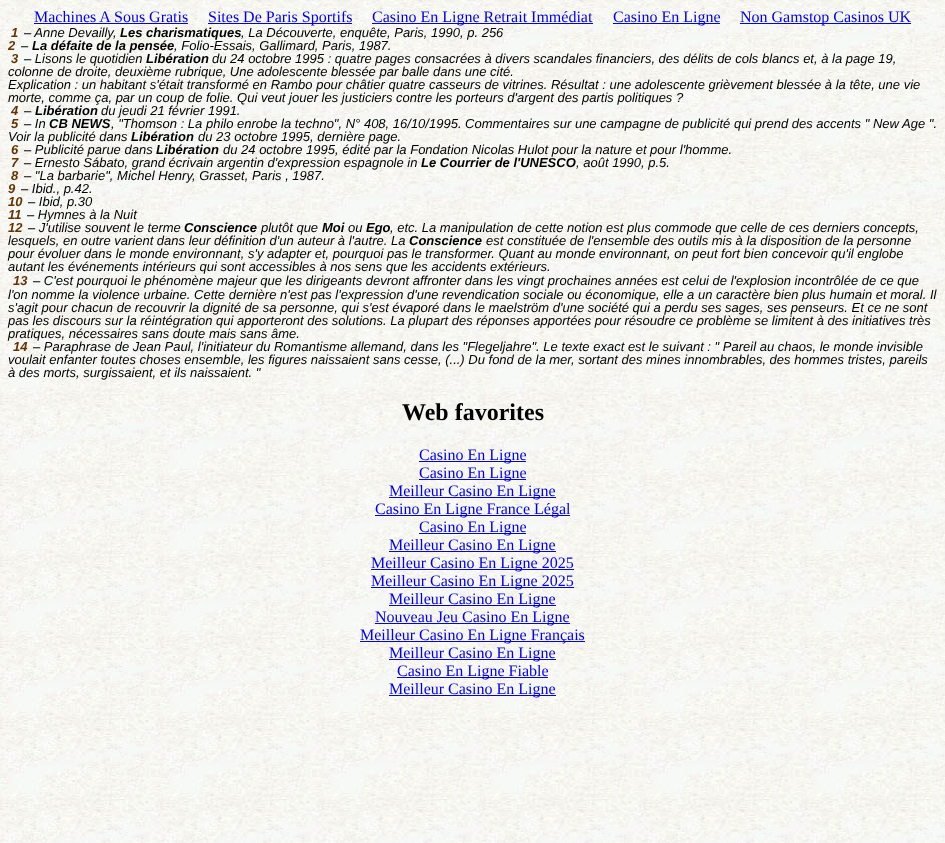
<svg xmlns="http://www.w3.org/2000/svg" width="945" height="843" viewBox="0 0 945 843">
  <rect width="100%" height="100%" fill="#fff"/>
  <image x="0" y="0" width="945" height="843" href="img/1.png"/>
  <path d="M34 23h154v1H34z" fill="#00e"/>
  <path d="M208 23h144v1H208z" fill="#00e"/>
  <path d="M372 23h221v1H372z" fill="#00e"/>
  <path d="M613 23h107v1H613z" fill="#00e"/>
  <path d="M740 23h171v1H740z" fill="#00e"/>
  <path d="M419 461h107v1H419z" fill="#00e"/>
  <path d="M419 479h107v1H419z" fill="#00e"/>
  <path d="M389 497h167v1H389z" fill="#00e"/>
  <path d="M375 515h195v1H375z" fill="#00e"/>
  <path d="M419 533h107v1H419z" fill="#00e"/>
  <path d="M389 551h167v1H389z" fill="#00e"/>
  <path d="M371 569h203v1H371z" fill="#00e"/>
  <path d="M371 587h203v1H371z" fill="#00e"/>
  <path d="M389 605h167v1H389z" fill="#00e"/>
  <path d="M375 623h195v1H375z" fill="#00e"/>
  <path d="M360 641h225v1H360z" fill="#00e"/>
  <path d="M389 659h167v1H389z" fill="#00e"/>
  <path d="M397 677h151v1H397z" fill="#00e"/>
  <path d="M389 695h167v1H389z" fill="#00e"/>
  <g font-family="Liberation Serif" font-size="16" fill="#00e">
    <text x="34" y="22">Machines A Sous Gratis</text>
    <text x="208" y="22">Sites De Paris Sportifs</text>
    <text x="372" y="22">Casino En Ligne Retrait Immédiat</text>
    <text x="613" y="22">Casino En Ligne</text>
    <text x="740" y="22">Non Gamstop Casinos UK</text>
  </g>
  <text x="11" y="37" font-family="Liberation Sans" font-size="13" font-weight="bold" font-style="italic" fill="#630">1</text>
  <text x="24" y="37" font-family="Liberation Sans" font-size="13" font-style="italic" fill="#000">– Anne Devailly,</text>
  <text x="120" y="37" font-family="Liberation Sans" font-size="13" font-weight="bold" font-style="italic" fill="#000">Les charismatiques</text>
  <text x="241" y="37" font-family="Liberation Sans" font-size="13" font-style="italic" fill="#000">, La Découverte, enquête, Paris, 1990, p. 256</text>
  <text x="8" y="50" font-family="Liberation Sans" font-size="13" font-weight="bold" font-style="italic" fill="#630">2</text>
  <text x="21" y="50" font-family="Liberation Sans" font-size="13" font-style="italic" fill="#000">–</text>
  <text x="32" y="50" font-family="Liberation Sans" font-size="13" font-weight="bold" font-style="italic" fill="#000">La défaite de la pensée</text>
  <text x="174" y="50" font-family="Liberation Sans" font-size="13" font-style="italic" fill="#000">, Folio-Essais, Gallimard, Paris, 1987.</text>
  <text x="11" y="63" font-family="Liberation Sans" font-size="13" font-weight="bold" font-style="italic" fill="#630">3</text>
  <text x="24" y="63" font-family="Liberation Sans" font-size="13" font-style="italic" fill="#000">– Lisons le quotidien</text>
  <text x="146" y="63" font-family="Liberation Sans" font-size="13" font-weight="bold" font-style="italic" fill="#000">Libération</text>
  <g font-family="Liberation Sans" font-size="13" font-style="italic" fill="#000">
    <text x="212" y="63">du 24 octobre 1995 : quatre pages consacrées à divers scandales financiers, des délits de cols blancs et, à la page 19,</text>
    <text x="8" y="76">colonne de droite, deuxième rubrique, Une adolescente blessée par balle dans une cité.</text>
    <text x="8" y="89">Explication : un habitant s'était transformé en Rambo pour châtier quatre casseurs de vitrines. Résultat : une adolescente grièvement blessée à la tête, une vie</text>
    <text x="8" y="102">morte, comme ça, par un coup de folie. Qui veut jouer les justiciers contre les porteurs d'argent des partis politiques ?</text>
  </g>
  <text x="11" y="115" font-family="Liberation Sans" font-size="13" font-weight="bold" font-style="italic" fill="#630">4</text>
  <text x="24" y="115" font-family="Liberation Sans" font-size="13" font-style="italic" fill="#000">–</text>
  <text x="35" y="115" font-family="Liberation Sans" font-size="13" font-weight="bold" font-style="italic" fill="#000">Libération</text>
  <text x="101" y="115" font-family="Liberation Sans" font-size="13" font-style="italic" fill="#000">du jeudi 21 février 1991.</text>
  <text x="11" y="128" font-family="Liberation Sans" font-size="13" font-weight="bold" font-style="italic" fill="#630">5</text>
  <text x="24" y="128" font-family="Liberation Sans" font-size="13" font-style="italic" fill="#000">– In</text>
  <text x="49" y="128" font-family="Liberation Sans" font-size="13" font-weight="bold" font-style="italic" fill="#000">CB NEWS</text>
  <g font-family="Liberation Sans" font-size="13" font-style="italic" fill="#000">
    <text x="111" y="128">, "Thomson : La philo enrobe la techno", N° 408, 16/10/1995. Commentaires sur une campagne de publicité qui prend des accents " New Age ".</text>
    <text x="8" y="141">Voir la publicité dans</text>
  </g>
  <text x="131" y="141" font-family="Liberation Sans" font-size="13" font-weight="bold" font-style="italic" fill="#000">Libération</text>
  <text x="198" y="141" font-family="Liberation Sans" font-size="13" font-style="italic" fill="#000">du 23 octobre 1995, dernière page.</text>
  <text x="11" y="154" font-family="Liberation Sans" font-size="13" font-weight="bold" font-style="italic" fill="#630">6</text>
  <text x="24" y="154" font-family="Liberation Sans" font-size="13" font-style="italic" fill="#000">– Publicité parue dans</text>
  <text x="156" y="154" font-family="Liberation Sans" font-size="13" font-weight="bold" font-style="italic" fill="#000">Libération</text>
  <text x="223" y="154" font-family="Liberation Sans" font-size="13" font-style="italic" fill="#000">du 24 octobre 1995, édité par la Fondation Nicolas Hulot pour la nature et pour l'homme.</text>
  <text x="11" y="167" font-family="Liberation Sans" font-size="13" font-weight="bold" font-style="italic" fill="#630">7</text>
  <text x="24" y="167" font-family="Liberation Sans" font-size="13" font-style="italic" fill="#000">– Ernesto Sábato, grand écrivain argentin d'expression espagnole in</text>
  <text x="421" y="167" font-family="Liberation Sans" font-size="13" font-weight="bold" font-style="italic" fill="#000">Le Courrier de l'UNESCO</text>
  <text x="576" y="167" font-family="Liberation Sans" font-size="13" font-style="italic" fill="#000">, août 1990, p.5.</text>
  <text x="11" y="180" font-family="Liberation Sans" font-size="13" font-weight="bold" font-style="italic" fill="#630">8</text>
  <text x="24" y="180" font-family="Liberation Sans" font-size="13" font-style="italic" fill="#000">– "La barbarie", Michel Henry, Grasset, Paris , 1987.</text>
  <text x="8" y="193" font-family="Liberation Sans" font-size="13" font-weight="bold" font-style="italic" fill="#630">9</text>
  <text x="21" y="193" font-family="Liberation Sans" font-size="13" font-style="italic" fill="#000">– Ibid., p.42.</text>
  <text x="8" y="206" font-family="Liberation Sans" font-size="13" font-weight="bold" font-style="italic" fill="#630">10</text>
  <text x="28" y="206" font-family="Liberation Sans" font-size="13" font-style="italic" fill="#000">– Ibid, p.30</text>
  <text x="8" y="219" font-family="Liberation Sans" font-size="13" font-weight="bold" font-style="italic" fill="#630">11</text>
  <text x="27" y="219" font-family="Liberation Sans" font-size="13" font-style="italic" fill="#000">– Hymnes à la Nuit</text>
  <text x="8" y="232" font-family="Liberation Sans" font-size="13" font-weight="bold" font-style="italic" fill="#630">12</text>
  <text x="28" y="232" font-family="Liberation Sans" font-size="13" font-style="italic" fill="#000">– J'utilise souvent le terme</text>
  <text x="184" y="232" font-family="Liberation Sans" font-size="13" font-weight="bold" font-style="italic" fill="#000">Conscience</text>
  <text x="261" y="232" font-family="Liberation Sans" font-size="13" font-style="italic" fill="#000">plutôt que</text>
  <text x="322" y="232" font-family="Liberation Sans" font-size="13" font-weight="bold" font-style="italic" fill="#000">Moi</text>
  <text x="348" y="232" font-family="Liberation Sans" font-size="13" font-style="italic" fill="#000">ou</text>
  <text x="366" y="232" font-family="Liberation Sans" font-size="13" font-weight="bold" font-style="italic" fill="#000">Ego</text>
  <g font-family="Liberation Sans" font-size="13" font-style="italic" fill="#000">
    <text x="390" y="232">, etc. La manipulation de cette notion est plus commode que celle de ces derniers concepts,</text>
    <text x="8" y="245">lesquels, en outre varient dans leur définition d'un auteur à l'autre. La</text>
  </g>
  <text x="409" y="245" font-family="Liberation Sans" font-size="13" font-weight="bold" font-style="italic" fill="#000">Conscience</text>
  <g font-family="Liberation Sans" font-size="13" font-style="italic" fill="#000">
    <text x="486" y="245">est constituée de l'ensemble des outils mis à la disposition de la personne</text>
    <text x="8" y="258">pour évoluer dans le monde environnant, s'y adapter et, pourquoi pas le transformer. Quant au monde environnant, on peut fort bien concevoir qu'il englobe</text>
    <text x="8" y="271">autant les événements intérieurs qui sont accessibles à nos sens que les accidents extérieurs.</text>
  </g>
  <text x="13" y="285" font-family="Liberation Sans" font-size="13" font-weight="bold" font-style="italic" fill="#630">13</text>
  <g font-family="Liberation Sans" font-size="13" font-style="italic" fill="#000">
    <text x="33" y="285">– C'est pourquoi le phénomène majeur que les dirigeants devront affronter dans les vingt prochaines années est celui de l'explosion incontrôlée de ce que</text>
    <text x="8" y="299">l'on nomme la violence urbaine. Cette dernière n'est pas l'expression d'une revendication sociale ou économique, elle a un caractère bien plus humain et moral. Il</text>
    <text x="8" y="312">s'agit pour chacun de recouvrir la dignité de sa personne, qui s'est évaporé dans le maelström d'une société qui a perdu ses sages, ses penseurs. Et ce ne sont</text>
    <text x="8" y="325">pas les discours sur la réintégration qui apporteront des solutions. La plupart des réponses apportées pour résoudre ce problème se limitent à des initiatives très</text>
    <text x="8" y="338">pratiques, nécessaires sans doute mais sans âme.</text>
  </g>
  <text x="13" y="351" font-family="Liberation Sans" font-size="13" font-weight="bold" font-style="italic" fill="#630">14</text>
  <g font-family="Liberation Sans" font-size="13" font-style="italic" fill="#000">
    <text x="33" y="351">– Paraphrase de Jean Paul, l'initiateur du Romantisme allemand, dans les "Flegeljahre". Le texte exact est le suivant : " Pareil au chaos, le monde invisible</text>
    <text x="8" y="364">voulait enfanter toutes choses ensemble, les figures naissaient sans cesse, (...) Du fond de la mer, sortant des mines innombrables, des hommes tristes, pareils</text>
    <text x="8" y="377">à des morts, surgissaient, et ils naissaient. "</text>
  </g>
  <text x="402" y="420" font-family="Liberation Serif" font-size="24" font-weight="bold" fill="#000">Web favorites</text>
  <g font-family="Liberation Serif" font-size="16" fill="#00e">
    <text x="419" y="460">Casino En Ligne</text>
    <text x="419" y="478">Casino En Ligne</text>
    <text x="389" y="496">Meilleur Casino En Ligne</text>
    <text x="375" y="514">Casino En Ligne France Légal</text>
    <text x="419" y="532">Casino En Ligne</text>
    <text x="389" y="550">Meilleur Casino En Ligne</text>
    <text x="371" y="568">Meilleur Casino En Ligne 2025</text>
    <text x="371" y="586">Meilleur Casino En Ligne 2025</text>
    <text x="389" y="604">Meilleur Casino En Ligne</text>
    <text x="375" y="622">Nouveau Jeu Casino En Ligne</text>
    <text x="360" y="640">Meilleur Casino En Ligne Français</text>
    <text x="389" y="658">Meilleur Casino En Ligne</text>
    <text x="397" y="676">Casino En Ligne Fiable</text>
    <text x="389" y="694">Meilleur Casino En Ligne</text>
  </g>
</svg>
